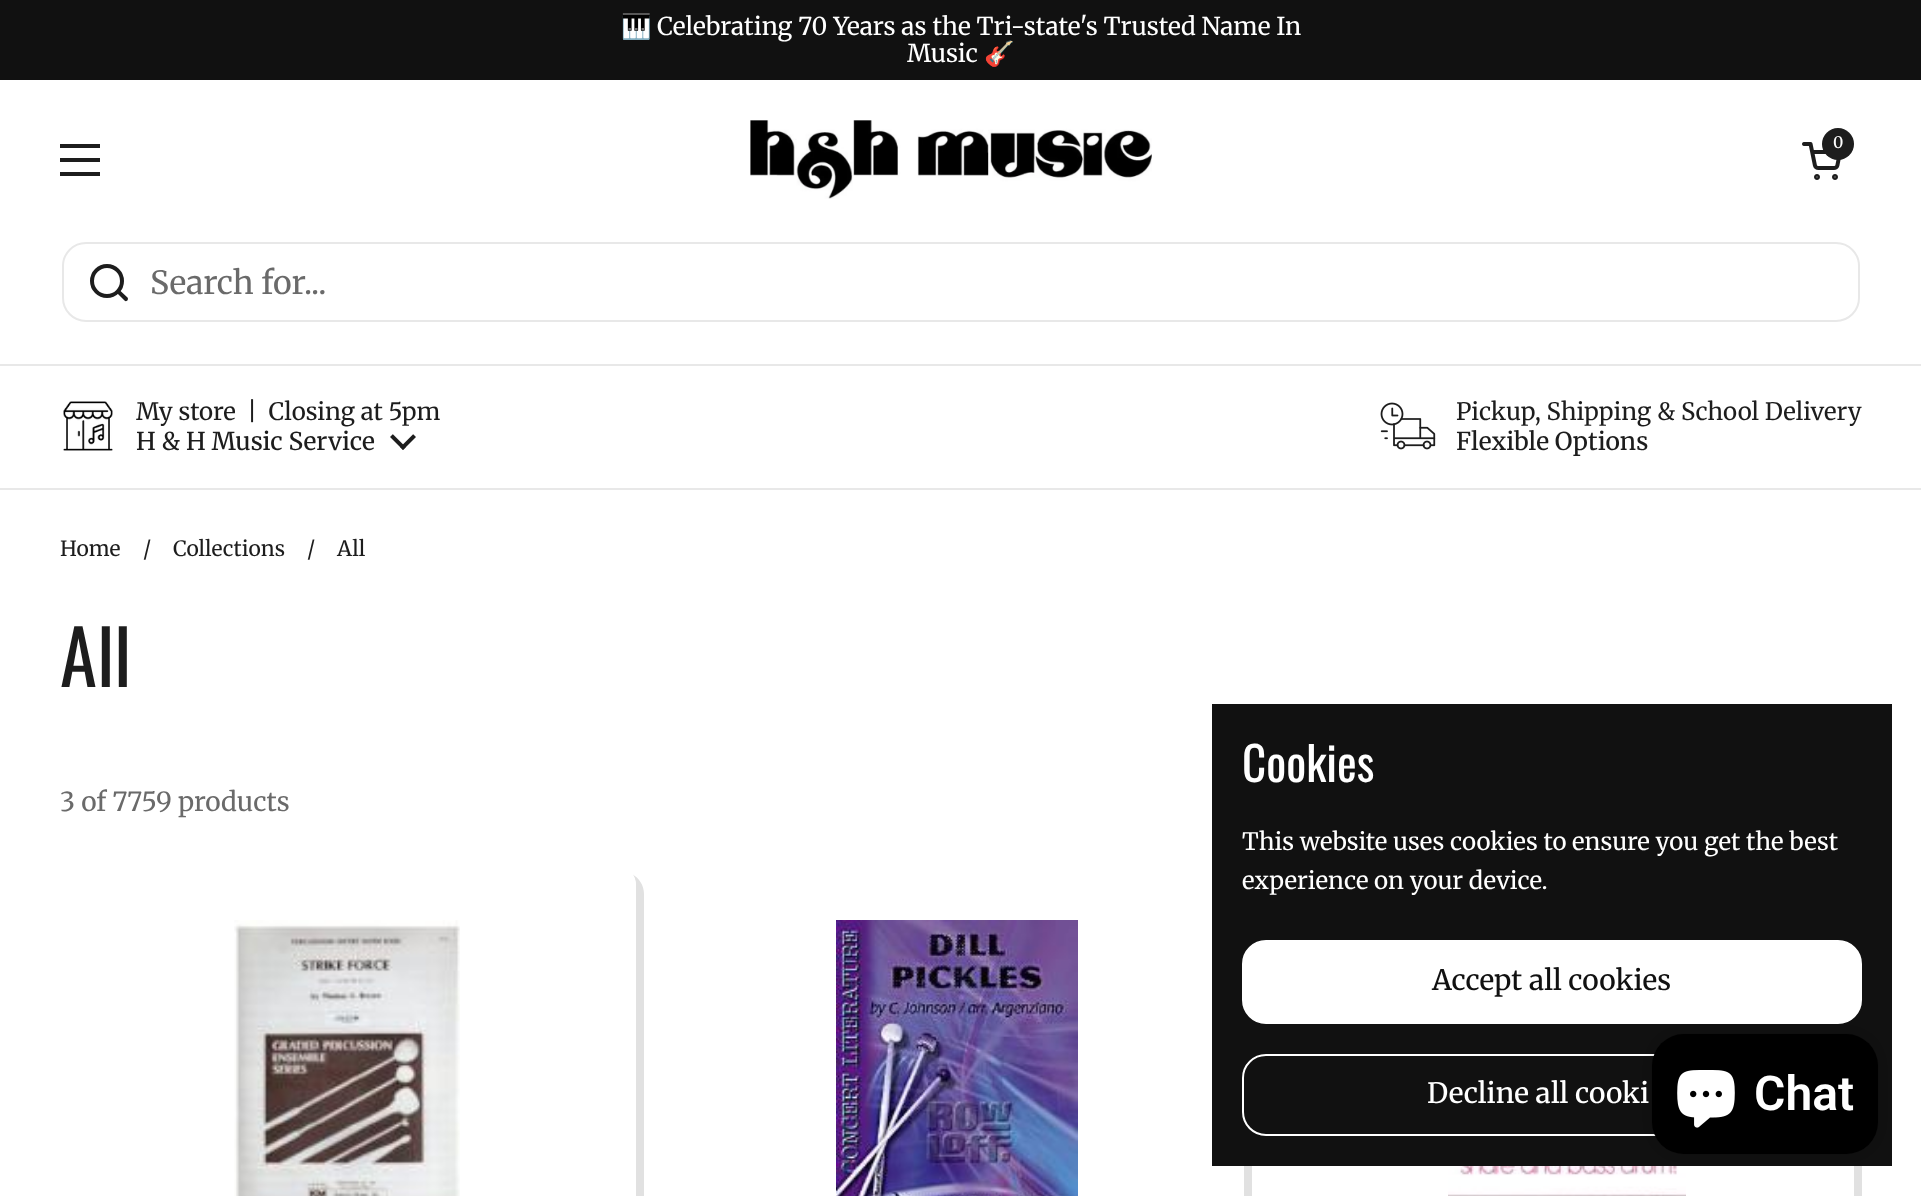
<svg xmlns="http://www.w3.org/2000/svg" width="1921" height="1196" viewBox="0 0 1921 1196">
  <rect width="100%" height="100%" fill="#fff"/>
  <path d="M0 0h1921v80H0z" fill="#111"/>
  <image x="750" y="120" width="402" height="79" href="img/1.png"/>
  <image x="1802" y="142" width="39" height="38" href="img/2.png"/>
  <circle cx="1838" cy="144" r="16" fill="#1d1d1d"/>
  <path d="M60 144h40v4H60z" fill="#1d1d1d"/>
  <path d="M60 158h40v4H60z" fill="#1d1d1d"/>
  <path d="M60 172h40v4H60z" fill="#1d1d1d"/>
  <path d="M0 364h1921v2H0z" fill="#e8e8e8"/>
  <rect x="63" y="243" width="1796" height="78" rx="23" fill="none" stroke="#e8e8e8" stroke-width="2"/>
  <circle cx="107" cy="281" r="15" fill="none" stroke="#1d1d1d" stroke-width="4"/>
  <path d="M120 290.5L119 289L116 292L117.5 293.5ZM124.5 300.5C126.5 302.5 129 299.5 127.5 297.5ZM117.5 293.5L124.5 300.5L127.5 297.5L120 290.5Z" fill="#1d1d1d"/>
  <path d="M0 488h1921v2H0z" fill="#e8e8e8"/>
  <image x="63" y="401" width="50" height="50" href="img/3.png"/>
  <image x="390" y="434" width="26" height="16" href="img/4.png"/>
  <image x="1380" y="402" width="56" height="48" href="img/5.png"/>
  <path d="M72 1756C76 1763 83 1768 92 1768H620C633 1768 644 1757 644 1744V894C644 885 639 878 632 874C635 877 636 881 636 886V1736C636 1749 625 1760 612 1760H84C79 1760 75 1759 72 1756Z" fill="#e1e1e1"/>
  <rect x="60" y="862" width="576" height="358" rx="24" fill="#fff"/>
  <image x="234" y="920" width="226" height="276" href="img/6.png"/>
  <path d="M682 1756C686 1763 693 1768 702 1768H1228C1241 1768 1252 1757 1252 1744V894C1252 885 1247 878 1240 874C1243 877 1244 881 1244 886V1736C1244 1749 1233 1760 1220 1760H694C689 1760 685 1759 682 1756Z" fill="#e1e1e1"/>
  <rect x="670" y="862" width="574" height="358" rx="24" fill="#fff"/>
  <image x="836" y="920" width="242" height="276" href="img/7.png"/>
  <path d="M1290 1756C1294 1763 1301 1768 1310 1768H1838C1851 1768 1862 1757 1862 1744V894C1862 885 1857 878 1850 874C1853 877 1854 881 1854 886V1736C1854 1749 1843 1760 1830 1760H1302C1297 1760 1293 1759 1290 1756Z" fill="#e1e1e1"/>
  <image x="1448" y="1166" width="238" height="30" href="img/8.png"/>
  <path d="M1212 704h680v462H1212z" fill="#111"/>
  <rect x="1243" y="941" width="618" height="82" rx="23" fill="#fff" stroke="#fff" stroke-width="2"/>
  <rect x="1243" y="1055" width="618" height="80" rx="23" fill="none" stroke="#fff" stroke-width="2"/>
  <rect x="1652" y="1034" width="226" height="120" rx="32" fill="#00000026" filter="blur(5px)"/>
  <rect x="1652" y="1034" width="226" height="120" rx="32" fill="#000"/>
  <image x="1677" y="1070" width="58" height="58" href="img/9.png"/>
  <text x="621" y="35" font-family="Noto Color Emoji" font-size="24.5" fill="#fff">🎹</text>
  <g font-family="Merriweather" font-size="24.5" fill="#fff">
    <text x="657" y="35">Celebrating 70 Years as the Tri-state's Trusted Name In</text>
    <text x="907" y="62">Music</text>
  </g>
  <text x="984" y="62" font-family="Noto Color Emoji" font-size="24.5" fill="#fff">🎸</text>
  <text x="1833" y="148" font-family="Merriweather" font-size="16" font-weight="500" fill="#fff">0</text>
  <text x="150" y="294" font-family="Merriweather" font-size="32" fill="#6a6a6a">Search for...</text>
  <text x="136" y="420" font-family="Merriweather" font-size="24" fill="#1d1d1d" xml:space="preserve">My store  |  Closing at 5pm</text>
  <text x="136" y="450" font-family="Merriweather" font-size="24.5" font-weight="500" fill="#1d1d1d">H &amp; H Music Service</text>
  <text x="1456" y="420" font-family="Merriweather" font-size="24" fill="#1d1d1d">Pickup, Shipping &amp; School Delivery</text>
  <text x="1456" y="450" font-family="Merriweather" font-size="24.5" font-weight="500" fill="#1d1d1d">Flexible Options</text>
  <g font-family="Merriweather" font-size="21" fill="#1d1d1d">
    <text x="60" y="556">Home</text>
    <text x="143" y="556">/</text>
    <text x="173" y="556">Collections</text>
    <text x="307" y="556">/</text>
    <text x="337" y="556">All</text>
  </g>
  <text x="60" y="687" font-family="Oswald" font-size="75" fill="#1d1d1d">All</text>
  <text x="60" y="811" font-family="Merriweather" font-size="26.25" fill="#6a6a6a">3 of 7759 products</text>
  <text x="1242" y="782" font-family="Oswald" font-size="47" fill="#fff">Cookies</text>
  <g font-family="Merriweather" font-size="24" fill="#fff">
    <text x="1242" y="850">This website uses cookies to ensure you get the best</text>
    <text x="1242" y="889">experience on your device.</text>
  </g>
  <text x="1432" y="990" font-family="Merriweather" font-size="28" font-weight="500" fill="#111">Accept all cookies</text>
  <text x="1427" y="1103" font-family="Merriweather" font-size="28" font-weight="500" fill="#fff">Decline all cooki</text>
  <text x="1754" y="1110" font-family="Roboto" font-size="48" font-weight="600" fill="#fff">Chat</text>
</svg>
